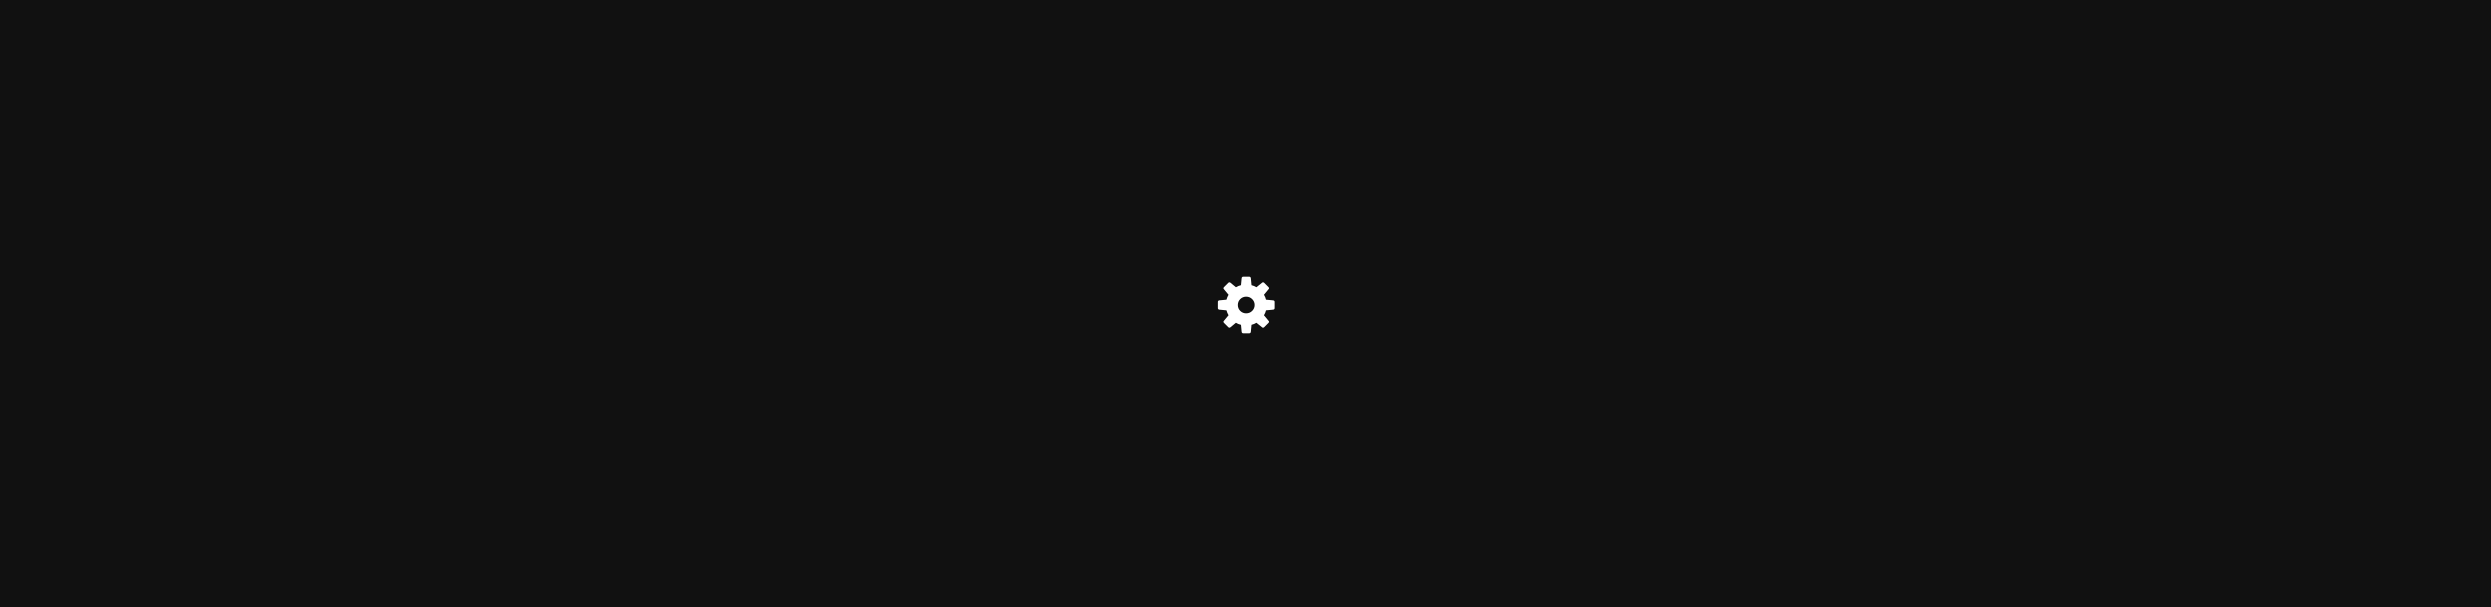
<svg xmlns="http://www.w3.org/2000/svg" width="2491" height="607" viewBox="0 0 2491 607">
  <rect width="100%" height="100%" fill="#111"/>
  <image x="1217" y="276" width="58" height="58" href="img/1.png"/>
</svg>
